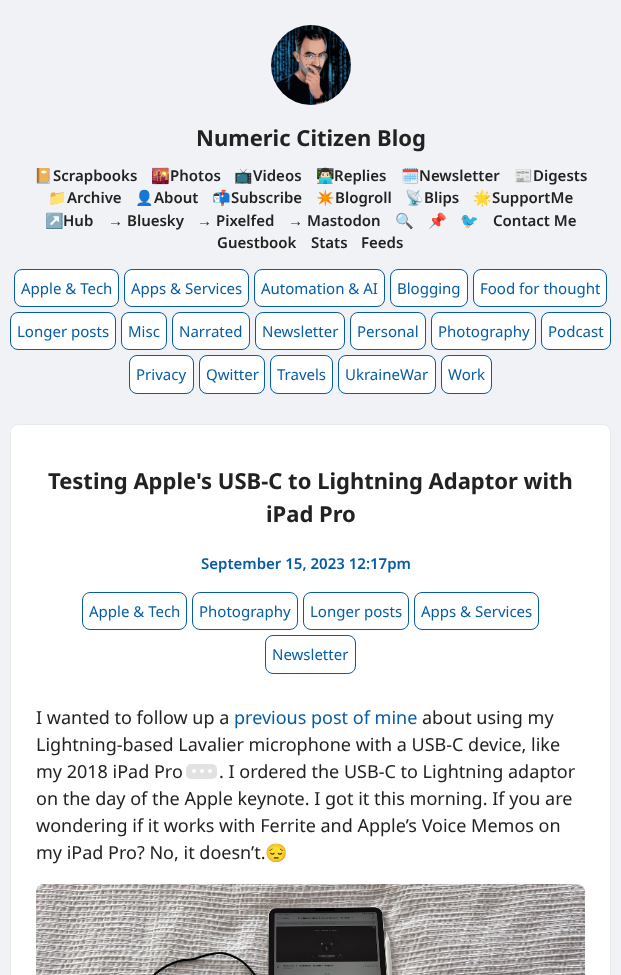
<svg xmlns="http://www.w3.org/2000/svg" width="621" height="975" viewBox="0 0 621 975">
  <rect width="100%" height="100%" fill="#f0f2f5"/>
  <image x="271" y="25" width="80" height="80" href="img/1.png"/>
  <rect x="14.5" y="269.5" width="104" height="37" rx="7.5" fill="#fff" stroke="#065ca5"/>
  <rect x="124.5" y="269.5" width="124" height="37" rx="7.5" fill="#fff" stroke="#065ca5"/>
  <rect x="254.5" y="269.5" width="130" height="37" rx="7.5" fill="#fff" stroke="#065ca5"/>
  <rect x="390.5" y="269.5" width="77" height="37" rx="7.5" fill="#fff" stroke="#065ca5"/>
  <rect x="473.5" y="269.5" width="133" height="37" rx="7.5" fill="#fff" stroke="#065ca5"/>
  <rect x="10.5" y="312.5" width="105" height="37" rx="7.5" fill="#fff" stroke="#065ca5"/>
  <rect x="121.5" y="312.5" width="45" height="37" rx="7.5" fill="#fff" stroke="#065ca5"/>
  <rect x="172.5" y="312.5" width="77" height="37" rx="7.5" fill="#fff" stroke="#065ca5"/>
  <rect x="255.5" y="312.5" width="89" height="37" rx="7.5" fill="#fff" stroke="#065ca5"/>
  <rect x="350.5" y="312.5" width="75" height="37" rx="7.5" fill="#fff" stroke="#065ca5"/>
  <rect x="431.5" y="312.5" width="104" height="37" rx="7.5" fill="#fff" stroke="#065ca5"/>
  <rect x="541.5" y="312.5" width="69" height="37" rx="7.5" fill="#fff" stroke="#065ca5"/>
  <rect x="129.5" y="355.5" width="64" height="38" rx="7.5" fill="#fff" stroke="#065ca5"/>
  <rect x="199.5" y="355.5" width="65" height="38" rx="7.5" fill="#fff" stroke="#065ca5"/>
  <rect x="270.5" y="355.5" width="62" height="38" rx="7.5" fill="#fff" stroke="#065ca5"/>
  <rect x="338.5" y="355.5" width="97" height="38" rx="7.5" fill="#fff" stroke="#065ca5"/>
  <rect x="441.5" y="355.5" width="50" height="38" rx="7.5" fill="#fff" stroke="#065ca5"/>
  <rect x="10.5" y="424.5" width="600" height="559" rx="7.5" fill="#fff" stroke="#eaeaec"/>
  <rect x="82.5" y="592.5" width="104" height="37" rx="7.5" fill="none" stroke="#065ca5"/>
  <rect x="192.5" y="592.5" width="105" height="37" rx="7.5" fill="none" stroke="#065ca5"/>
  <rect x="303.5" y="592.5" width="105" height="37" rx="7.5" fill="none" stroke="#065ca5"/>
  <rect x="414.5" y="592.5" width="124" height="37" rx="7.5" fill="none" stroke="#065ca5"/>
  <rect x="265.5" y="635.5" width="90" height="38" rx="7.5" fill="none" stroke="#065ca5"/>
  <rect x="186" y="764" width="31" height="15" rx="5" fill="#e2e2e2"/>
  <circle cx="194" cy="771" r="2" fill="#fff"/>
  <circle cx="202" cy="771" r="2" fill="#fff"/>
  <circle cx="210" cy="771" r="2" fill="#fff"/>
  <image x="36" y="884" width="549" height="91" href="img/2.png"/>
  <text x="196" y="146" font-family="Noto Sans" font-size="22" font-weight="bold" fill="#222">Numeric Citizen Blog</text>
  <text x="34" y="181" font-family="Noto Color Emoji" font-size="15" fill="#222">📔</text>
  <text x="53" y="181" font-family="Noto Sans" font-size="15" font-weight="600" fill="#222">Scrapbooks</text>
  <text x="151" y="181" font-family="Noto Color Emoji" font-size="15" fill="#222">🌇</text>
  <text x="170" y="181" font-family="Noto Sans" font-size="15" font-weight="600" fill="#222">Photos</text>
  <text x="234" y="181" font-family="Noto Color Emoji" font-size="15" fill="#222">📺</text>
  <text x="253" y="181" font-family="Noto Sans" font-size="15" font-weight="600" fill="#222">Videos</text>
  <text x="316" y="181" font-family="Noto Color Emoji" font-size="15" fill="#222">👨🏻‍💻</text>
  <text x="334" y="181" font-family="Noto Sans" font-size="15" font-weight="600" fill="#222">Replies</text>
  <text x="401" y="181" font-family="Noto Color Emoji" font-size="15" fill="#222">🗓️</text>
  <text x="419" y="181" font-family="Noto Sans" font-size="15" font-weight="600" fill="#222">Newsletter</text>
  <text x="514" y="181" font-family="Noto Color Emoji" font-size="15" fill="#222">📰</text>
  <text x="533" y="181" font-family="Noto Sans" font-size="15" font-weight="600" fill="#222">Digests</text>
  <text x="48" y="203" font-family="Noto Color Emoji" font-size="15" fill="#222">📁</text>
  <text x="67" y="203" font-family="Noto Sans" font-size="15" font-weight="600" fill="#222">Archive</text>
  <text x="135" y="203" font-family="Noto Color Emoji" font-size="15" fill="#222">👤</text>
  <text x="154" y="203" font-family="Noto Sans" font-size="15" font-weight="600" fill="#222">About</text>
  <text x="212" y="203" font-family="Noto Color Emoji" font-size="15" fill="#222">📬</text>
  <text x="231" y="203" font-family="Noto Sans" font-size="15" font-weight="600" fill="#222">Subscribe</text>
  <text x="316" y="203" font-family="Noto Color Emoji" font-size="15" fill="#222">✴️</text>
  <text x="335" y="203" font-family="Noto Sans" font-size="15" font-weight="600" fill="#222">Blogroll</text>
  <text x="405" y="203" font-family="Noto Color Emoji" font-size="15" fill="#222">📡</text>
  <text x="424" y="203" font-family="Noto Sans" font-size="15" font-weight="600" fill="#222">Blips</text>
  <text x="473" y="203" font-family="Noto Color Emoji" font-size="15" fill="#222">🌟</text>
  <text x="492" y="203" font-family="Noto Sans" font-size="15" font-weight="600" fill="#222">SupportMe</text>
  <text x="45" y="226" font-family="Noto Color Emoji" font-size="15" fill="#222">↗️</text>
  <text x="63" y="226" font-family="Noto Sans" font-size="15" font-weight="600" fill="#222">Hub</text>
  <text x="108" y="226" font-family="Liberation Sans" font-size="15" font-weight="bold" fill="#222">→</text>
  <text x="127" y="226" font-family="Noto Sans" font-size="15" font-weight="600" fill="#222">Bluesky</text>
  <text x="197" y="226" font-family="Liberation Sans" font-size="15" font-weight="bold" fill="#222">→</text>
  <text x="216" y="226" font-family="Noto Sans" font-size="15" font-weight="600" fill="#222">Pixelfed</text>
  <text x="288" y="226" font-family="Liberation Sans" font-size="15" font-weight="bold" fill="#222">→</text>
  <text x="307" y="226" font-family="Noto Sans" font-size="15" font-weight="600" fill="#222">Mastodon</text>
  <g font-family="Noto Color Emoji" font-size="15" fill="#222">
    <text x="395" y="226">🔍</text>
    <text x="428" y="226">📌</text>
    <text x="460" y="226">🐦</text>
  </g>
  <g font-family="Noto Sans" font-size="15" font-weight="600" fill="#222">
    <text x="493" y="226">Contact Me</text>
    <text x="217" y="248">Guestbook</text>
    <text x="311" y="248">Stats</text>
    <text x="361" y="248">Feeds</text>
  </g>
  <g font-family="Noto Sans" font-size="15" fill="#065ca5">
    <text x="21" y="294">Apple &amp; Tech</text>
    <text x="131" y="294">Apps &amp; Services</text>
    <text x="261" y="294">Automation &amp; AI</text>
    <text x="397" y="294">Blogging</text>
    <text x="480" y="294">Food for thought</text>
    <text x="17" y="337">Longer posts</text>
    <text x="128" y="337">Misc</text>
    <text x="179" y="337">Narrated</text>
    <text x="262" y="337">Newsletter</text>
    <text x="357" y="337">Personal</text>
    <text x="438" y="337">Photography</text>
    <text x="548" y="337">Podcast</text>
    <text x="136" y="380">Privacy</text>
    <text x="206" y="380">Qwitter</text>
    <text x="277" y="380">Travels</text>
    <text x="345" y="380">UkraineWar</text>
    <text x="448" y="380">Work</text>
  </g>
  <g font-family="Noto Sans" font-size="22" font-weight="bold" fill="#222">
    <text x="48" y="489">Testing Apple's USB-C to Lightning Adaptor with</text>
    <text x="266" y="522">iPad Pro</text>
  </g>
  <text x="201" y="569" font-family="Noto Sans" font-size="15" font-weight="600" fill="#065ca5">September 15, 2023 12:17pm</text>
  <g font-family="Noto Sans" font-size="15" fill="#065ca5">
    <text x="89" y="617">Apple &amp; Tech</text>
    <text x="199" y="617">Photography</text>
    <text x="310" y="617">Longer posts</text>
    <text x="421" y="617">Apps &amp; Services</text>
    <text x="272" y="660">Newsletter</text>
  </g>
  <text x="36" y="724" font-family="Noto Sans" font-size="18" fill="#222">I wanted to follow up a</text>
  <text x="234" y="724" font-family="Noto Sans" font-size="18" fill="#065ca5">previous post of mine</text>
  <g font-family="Noto Sans" font-size="18" fill="#222">
    <text x="422" y="724">about using my</text>
    <text x="36" y="751">Lightning-based Lavalier microphone with a USB-C device, like</text>
    <text x="36" y="778">my 2018 iPad Pro</text>
    <text x="219" y="778">. I ordered the USB-C to Lightning adaptor</text>
    <text x="36" y="805">on the day of the Apple keynote. I got it this morning. If you are</text>
    <text x="36" y="832">wondering if it works with Ferrite and Apple’s Voice Memos on</text>
    <text x="36" y="859">my iPad Pro? No, it doesn’t.</text>
  </g>
  <text x="265" y="859" font-family="Noto Color Emoji" font-size="18" fill="#222">😔</text>
</svg>
